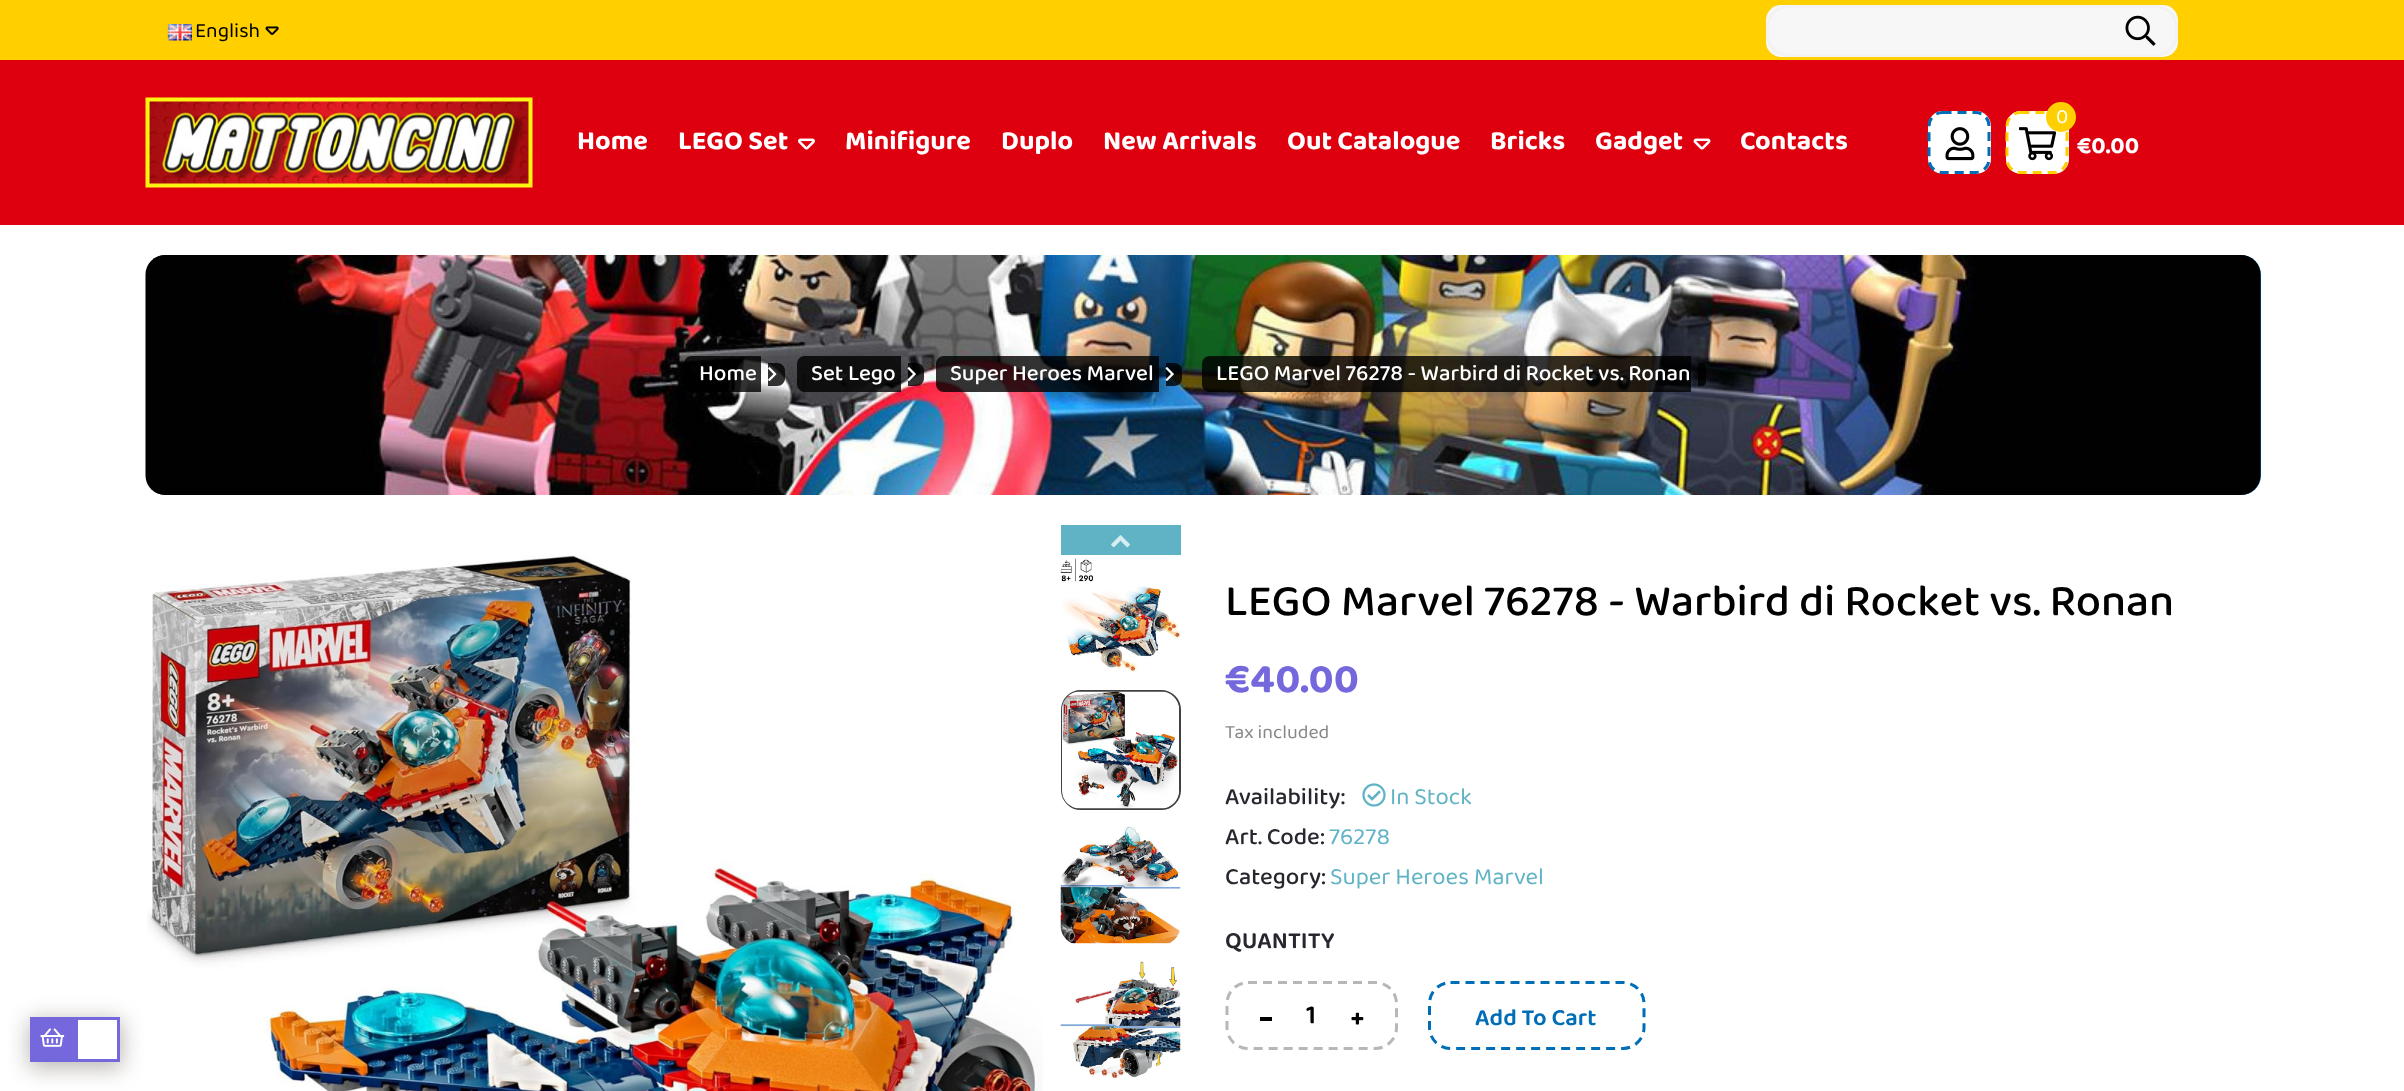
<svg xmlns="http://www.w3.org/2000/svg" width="2404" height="1091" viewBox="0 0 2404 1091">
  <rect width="100%" height="100%" fill="#fff"/>
  <path d="M0 0h2404v60H0z" fill="#ffcf00"/>
  <image x="167" y="24" width="25" height="17" href="img/1.png"/>
  <image x="265" y="26" width="14" height="9" href="img/2.png"/>
  <rect x="1766" y="5" width="412" height="52" rx="15" fill="#f7f7f7"/>
  <rect x="1767.5" y="6.5" width="409" height="49" rx="21.5" fill="none" stroke="#f2f2f2" stroke-width="3"/>
  <image x="2125" y="15" width="31" height="31" href="img/3.png"/>
  <path d="M0 60h2404v165H0z" fill="#de000f"/>
  <image x="145" y="97" width="388" height="91" href="img/4.png"/>
  <image x="798" y="138" width="17" height="12" href="img/5.png"/>
  <image x="1693" y="138" width="18" height="12" href="img/6.png"/>
  <rect x="1928" y="111" width="63" height="63" rx="15" fill="#fff"/>
  <path d="M1942.5 112.5H1975.5C1983 112.5 1989 118.5 1989 126V159C1989 166.5 1983 172.5 1975.5 172.5H1942.5C1935 172.5 1929 166.5 1929 159V126C1929 118.5 1935 112.5 1942.5 112.5Z" fill="none" stroke="#016db6" stroke-width="3" stroke-dasharray="9 6"/>
  <image x="1945" y="127" width="30" height="34" href="img/7.png"/>
  <rect x="2006" y="111" width="63" height="63" rx="15" fill="#fff"/>
  <path d="M2020.5 112.5H2053.5C2061 112.5 2067 118.5 2067 126V159C2067 166.5 2061 172.5 2053.5 172.5H2020.5C2013 172.5 2007 166.5 2007 159V126C2007 118.5 2013 112.5 2020.5 112.5Z" fill="none" stroke="#ffcf00" stroke-width="3" stroke-dasharray="9 6"/>
  <image x="2019" y="127" width="38" height="34" href="img/8.png"/>
  <circle cx="2061" cy="117" r="15" fill="#ffcf00"/>
  <rect x="146" y="255" width="2115" height="240" rx="20" fill="#006db7"/>
  <image x="145" y="255" width="2116" height="240" href="img/9.png"/>
  <path d="M692 356H756V392H692C687.5 392 684 388.5 684 384V364C684 359.5 687.5 356 692 356Z" fill="#000000cc"/>
  <path d="M756 356h5v36H756z" fill="#000000cc"/>
  <path d="M768 363H777C781.5 363 785 366.5 785 371V378C785 382.5 781.5 386 777 386H768Z" fill="#000000cc"/>
  <image x="768" y="367" width="9" height="15" href="img/10.png"/>
  <path d="M805 356H896V392H805C800.5 392 797 388.5 797 384V364C797 359.5 800.5 356 805 356Z" fill="#000000cc"/>
  <path d="M896 356h5v36H896z" fill="#000000cc"/>
  <path d="M908 363H916C920.5 363 924 366.5 924 371V378C924 382.5 920.5 386 916 386H908Z" fill="#000000cc"/>
  <image x="907" y="367" width="9" height="14" href="img/11.png"/>
  <path d="M944 356H1154V392H944C939.5 392 936 388.5 936 384V364C936 359.5 939.5 356 944 356Z" fill="#000000cc"/>
  <path d="M1154 356h5v36H1154z" fill="#000000cc"/>
  <path d="M1166 363H1174C1178.5 363 1182 366.5 1182 371V378C1182 382.5 1178.5 386 1174 386H1166Z" fill="#000000cc"/>
  <image x="1165" y="367" width="9" height="14" href="img/12.png"/>
  <path d="M1210 356H1691V392H1210C1205.5 392 1202 388.5 1202 384V364C1202 359.5 1205.5 356 1210 356Z" fill="#000000cc"/>
  <path d="M1698 363H1702C1704 363 1706 365 1706 367V382C1706 384 1704 386 1702 386H1698Z" fill="#000000cc"/>
  <image x="147" y="555" width="896" height="536" href="img/13.png"/>
  <path d="M1061 525h120v30H1061z" fill="#5fb3c5"/>
  <image x="1111" y="535" width="19" height="13" href="img/14.png"/>
  <image x="1060" y="558" width="121" height="114" href="img/15.png"/>
  <rect x="1062" y="691" width="118" height="118" rx="19" fill="none" stroke="#414141" stroke-width="2"/>
  <image x="1062" y="691" width="117" height="118" href="img/16.png"/>
  <image x="1060" y="826" width="121" height="118" href="img/17.png"/>
  <image x="1060" y="961" width="121" height="118" href="img/18.png"/>
  <image x="1362" y="783" width="24" height="24" href="img/19.png"/>
  <path d="M1248 982.5H1375.5C1387 982.5 1396.5 992 1396.5 1003.5V1027.5C1396.5 1039 1387 1048.5 1375.5 1048.5H1248C1236.5 1048.5 1227 1039 1227 1027.5V1003.5C1227 992 1236.5 982.5 1248 982.5Z" fill="none" stroke="#b7b7b7" stroke-width="3" stroke-dasharray="9 6"/>
  <path d="M1260 1017h12v4H1260z" fill="#000"/>
  <image x="1351" y="1012" width="13" height="13" href="img/20.png"/>
  <path d="M1450.5 982.5H1623C1634.5 982.5 1644 992 1644 1003.5V1027.5C1644 1039 1634.5 1048.5 1623 1048.5H1450.5C1439 1048.5 1429.5 1039 1429.5 1027.5V1003.5C1429.5 992 1439 982.5 1450.5 982.5Z" fill="none" stroke="#006db7" stroke-width="3" stroke-dasharray="9 6"/>
  <path d="M29 1020h93v48H29z" fill="#8e89829e" filter="blur(11px)"/>
  <path d="M30 1017h45v45H30z" fill="#7568dc"/>
  <image x="40" y="1028" width="25" height="19" href="img/21.png"/>
  <path d="M76.5 1018.5h42v42H76.5z" fill="#fff" stroke="#7568dc" stroke-width="3"/>
  <text x="195" y="37" font-family="'Baloo 2'" font-size="21" fill="#000">English</text>
  <g font-family="'Baloo 2'" font-size="27" font-weight="bold" fill="#fff">
    <text x="577" y="149">Home</text>
    <text x="678" y="149">LEGO Set</text>
    <text x="845" y="149">Minifigure</text>
    <text x="1001" y="149">Duplo</text>
    <text x="1103" y="149">New Arrivals</text>
    <text x="1287" y="149">Out Catalogue</text>
    <text x="1490" y="149">Bricks</text>
    <text x="1595" y="149">Gadget</text>
    <text x="1740" y="149">Contacts</text>
  </g>
  <text x="2056" y="123" font-family="'Baloo 2'" font-size="21" fill="#fff">0</text>
  <text x="2077" y="153" font-family="'Baloo 2'" font-size="24" font-weight="bold" fill="#fff">€0.00</text>
  <g font-family="'Baloo 2'" font-size="22.5" font-weight="500" fill="#fff">
    <text x="699" y="380">Home</text>
    <text x="811" y="380">Set Lego</text>
    <text x="950" y="380">Super Heroes Marvel</text>
    <text x="1216" y="380">LEGO Marvel 76278 - Warbird di Rocket vs. Ronan</text>
  </g>
  <text x="1225" y="615" font-family="'Baloo 2'" font-size="45" font-weight="500" fill="#000">LEGO Marvel 76278 - Warbird di Rocket vs. Ronan</text>
  <text x="1225" y="692" font-family="'Baloo 2'" font-size="42" font-weight="bold" fill="#7568dc">€40.00</text>
  <text x="1225" y="738" font-family="'Baloo 2'" font-size="19.5" fill="#878787">Tax included</text>
  <text x="1225" y="804" font-family="'Baloo 2'" font-size="24" font-weight="500" fill="#27272f">Availability:</text>
  <text x="1390" y="804" font-family="'Baloo 2'" font-size="24" fill="#5fb3c5">In Stock</text>
  <text x="1225" y="844" font-family="'Baloo 2'" font-size="24" font-weight="500" fill="#27272f">Art. Code:</text>
  <text x="1329" y="844" font-family="'Baloo 2'" font-size="24" fill="#5fb3c5">76278</text>
  <text x="1225" y="884" font-family="'Baloo 2'" font-size="24" font-weight="500" fill="#27272f">Category:</text>
  <text x="1330" y="884" font-family="'Baloo 2'" font-size="24" fill="#5fb3c5">Super Heroes Marvel</text>
  <text x="1225" y="948" font-family="'Baloo 2'" font-size="24" font-weight="600" fill="#27272f">QUANTITY</text>
  <text x="1306" y="1023" font-family="'Baloo 2'" font-size="27" font-weight="600" fill="#000">1</text>
  <text x="1475" y="1025" font-family="'Baloo 2'" font-size="24" font-weight="600" fill="#006db7">Add To Cart</text>
</svg>
